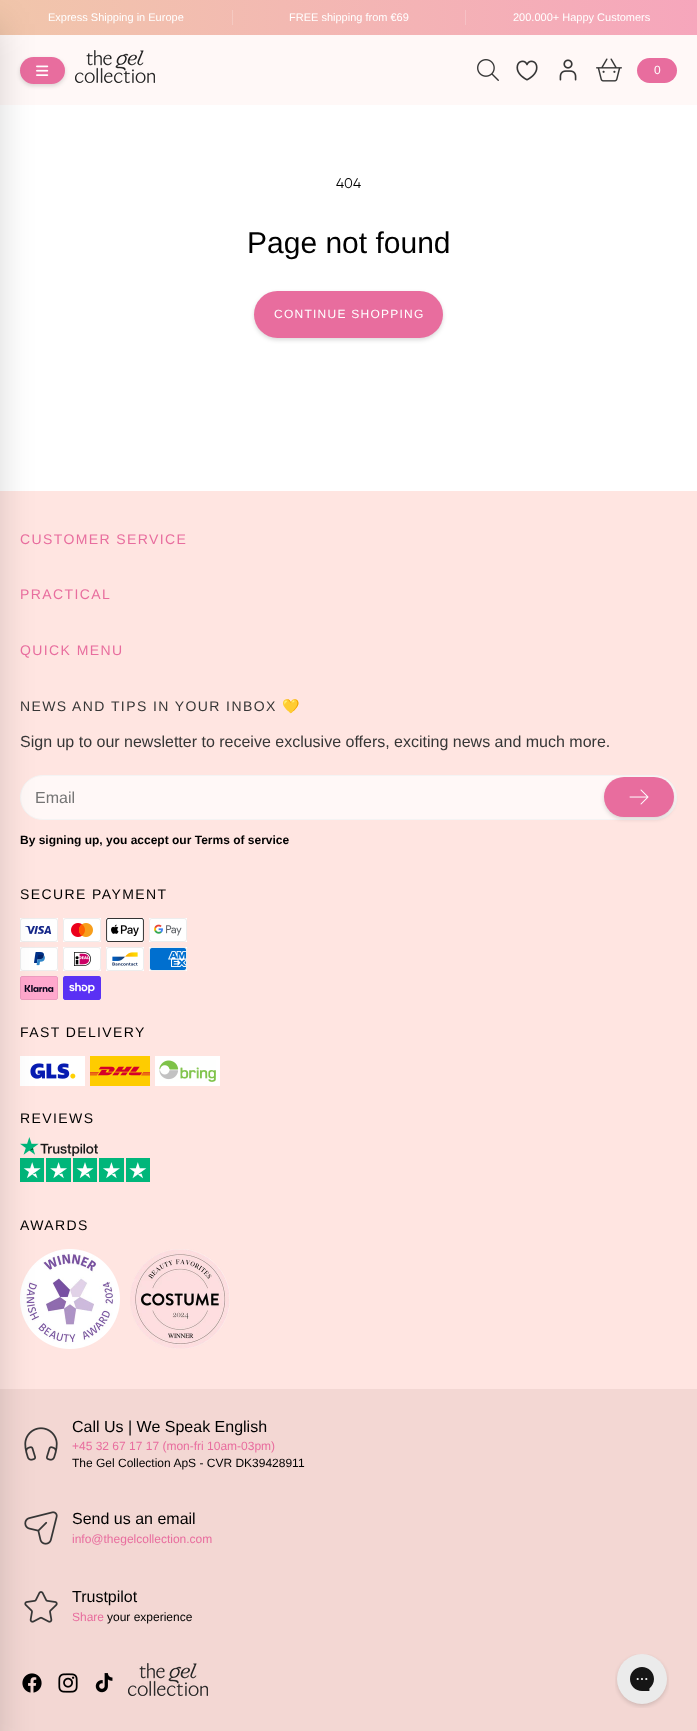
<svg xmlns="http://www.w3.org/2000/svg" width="697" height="1731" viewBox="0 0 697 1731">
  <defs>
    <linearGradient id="g1" gradientUnits="userSpaceOnUse" x1="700" y1="17" x2="0" y2="18"><stop offset="0" stop-color="#f6a6bc"/><stop offset="1" stop-color="#f1c6ab"/></linearGradient>
  </defs>
  <rect width="100%" height="100%" fill="#fff"/>
  <path d="M0 0h697v35H0z" fill="url(#g1)"/>
  <path d="M232 10h1v15H232z" fill="#f5c9c1"/>
  <path d="M465 10h1v15H465z" fill="#f6c1c5"/>
  <path d="M0 35h697v70H0z" fill="#fff8f7"/>
  <rect x="20" y="59" width="45" height="27" rx="13.5" fill="#00000026" filter="blur(2px)"/>
  <rect x="20" y="57" width="45" height="27" rx="13.5" fill="#e86d9e"/>
  <image x="36" y="65" width="13" height="11" href="img/1.png"/>
  <path d="M0 491h697v898H0z" fill="#ffe5e1"/>
  <rect x="20.5" y="775.5" width="656" height="44" rx="22" fill="#fff8f7" stroke="#f4f4f4"/>
  <path d="M20 918h38v24H20z" fill="#fff"/>
  <image x="20" y="918" width="38" height="24" href="img/8.png"/>
  <path d="M20 947h38v24H20z" fill="#fff"/>
  <image x="20" y="947" width="38" height="24" href="img/12.png"/>
  <path d="M20 976h38v24H20z" fill="#fff"/>
  <image x="20" y="976" width="38" height="24" href="img/16.png"/>
  <path d="M20 1056h65v30H20z" fill="#fff"/>
  <image x="30" y="1063" width="46" height="16" href="img/18.png"/>
  <image x="20" y="1137" width="78" height="20" href="img/21.png"/>
  <image x="20" y="1158" width="130" height="24" href="img/22.png"/>
  <image x="20" y="1249" width="100" height="100" href="img/23.png"/>
  <path d="M0 1389h697v342H0z" fill="#f3d7d3"/>
  <image x="24" y="1427" width="34" height="34" href="img/25.png"/>
  <image x="24" y="1511" width="34" height="34" href="img/26.png"/>
  <image x="24" y="1591" width="34" height="32" href="img/27.png"/>
  <image x="22" y="1673" width="20" height="20" href="img/28.png"/>
  <path d="M-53 24h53v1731H-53z" fill="#00000026" filter="blur(17.5px)"/>
  <image x="75" y="50" width="80" height="33" href="img/2.png"/>
  <image x="477" y="59" width="22" height="22" href="img/3.png"/>
  <image x="516" y="60" width="22" height="21" href="img/4.png"/>
  <image x="559" y="59" width="18" height="22" href="img/5.png"/>
  <image x="596" y="58" width="26" height="24" href="img/6.png"/>
  <rect x="637" y="58" width="40" height="25" rx="12.5" fill="#e86d9e"/>
  <rect x="254" y="293" width="189" height="47" rx="23.5" fill="#00000026" filter="blur(2px)"/>
  <rect x="254" y="291" width="189" height="47" rx="23.5" fill="#e86d9e"/>
  <rect x="604" y="779" width="70" height="40" rx="20" fill="#00000026" filter="blur(2px)"/>
  <rect x="604" y="777" width="70" height="40" rx="20" fill="#e86d9e"/>
  <image x="629" y="789" width="20" height="16" href="img/7.png"/>
  <path d="M63 918h38v24H63z" fill="#fff"/>
  <image x="63" y="918" width="38" height="24" href="img/9.png"/>
  <path d="M106 918h38v24H106z" fill="#fff"/>
  <image x="106" y="918" width="38" height="24" href="img/10.png"/>
  <path d="M149 918h38v24H149z" fill="#fff"/>
  <image x="149" y="918" width="38" height="24" href="img/11.png"/>
  <path d="M63 947h38v24H63z" fill="#fff"/>
  <image x="63" y="947" width="38" height="24" href="img/13.png"/>
  <path d="M106 947h38v24H106z" fill="#fff"/>
  <image x="106" y="947" width="38" height="24" href="img/14.png"/>
  <path d="M149 947h38v24H149z" fill="#fff"/>
  <image x="149" y="947" width="38" height="24" href="img/15.png"/>
  <path d="M63 976h38v24H63z" fill="#fff"/>
  <image x="63" y="976" width="38" height="24" href="img/17.png"/>
  <path d="M90 1056h60v30H90z" fill="#fecc00"/>
  <image x="90" y="1066" width="60" height="10" href="img/19.png"/>
  <path d="M155 1056h65v30H155z" fill="#fff"/>
  <image x="159" y="1060" width="57" height="22" href="img/20.png"/>
  <image x="130" y="1249" width="100" height="100" href="img/24.png"/>
  <image x="58" y="1673" width="20" height="20" href="img/29.png"/>
  <image x="95" y="1673" width="18" height="20" href="img/30.png"/>
  <image x="128" y="1663" width="80" height="33" href="img/31.png"/>
  <image x="615" y="1654" width="54" height="54" href="img/32.png"/>
  <g font-family="Liberation Sans" font-size="11" fill="#fff">
    <text x="48" y="21">Express Shipping in Europe</text>
    <text x="289" y="21">FREE shipping from €69</text>
    <text x="513" y="21">200.000+ Happy Customers</text>
  </g>
  <text x="654" y="74" font-family="Liberation Sans" font-size="12" fill="#fff">0</text>
  <text x="336" y="188" font-family="Gilroy" font-size="14" fill="#000">404</text>
  <text x="247" y="253" font-family="Liberation Sans" font-size="30" fill="#000">Page not found</text>
  <text x="274" y="318" font-family="Liberation Sans" font-size="12" letter-spacing="1.25" fill="#fff">CONTINUE SHOPPING</text>
  <g font-family="Liberation Sans" font-size="14" letter-spacing="1.4" fill="#e86d9e">
    <text x="20" y="544">CUSTOMER SERVICE</text>
    <text x="20" y="599">PRACTICAL</text>
    <text x="20" y="655">QUICK MENU</text>
  </g>
  <text x="20" y="711" font-family="Liberation Sans" font-size="14" letter-spacing="1.4" fill="#363636">NEWS AND TIPS IN YOUR INBOX</text>
  <text x="282" y="711" font-family="Noto Color Emoji" font-size="14" letter-spacing="1.4" fill="#363636">💛</text>
  <text x="20" y="747" font-family="Liberation Sans" font-size="16" fill="#363636">Sign up to our newsletter to receive exclusive offers, exciting news and much more.</text>
  <text x="35" y="803" font-family="Liberation Sans" font-size="16" fill="#757575">Email</text>
  <text x="20" y="844" font-family="Liberation Sans" font-size="12" font-weight="bold" fill="#000">By signing up, you accept our Terms of service</text>
  <g font-family="Liberation Sans" font-size="14" letter-spacing="1.4" fill="#000">
    <text x="20" y="899">SECURE PAYMENT</text>
    <text x="20" y="1037">FAST DELIVERY</text>
    <text x="20" y="1123">REVIEWS</text>
    <text x="20" y="1230">AWARDS</text>
  </g>
  <text x="72" y="1432" font-family="Liberation Sans" font-size="16" fill="#000">Call Us | We Speak English</text>
  <text x="72" y="1450" font-family="Liberation Sans" font-size="12" fill="#e86d9e">+45 32 67 17 17 (mon-fri 10am-03pm)</text>
  <text x="72" y="1467" font-family="Liberation Sans" font-size="12" fill="#000">The Gel Collection ApS - CVR DK39428911</text>
  <text x="72" y="1524" font-family="Liberation Sans" font-size="16" fill="#000">Send us an email</text>
  <text x="72" y="1543" font-family="Liberation Sans" font-size="12" fill="#e86d9e">info@thegelcollection.com</text>
  <text x="72" y="1602" font-family="Liberation Sans" font-size="16" fill="#000">Trustpilot</text>
  <text x="72" y="1621" font-family="Liberation Sans" font-size="12" fill="#e86d9e">Share</text>
  <text x="107" y="1621" font-family="Liberation Sans" font-size="12" fill="#000">your experience</text>
</svg>
